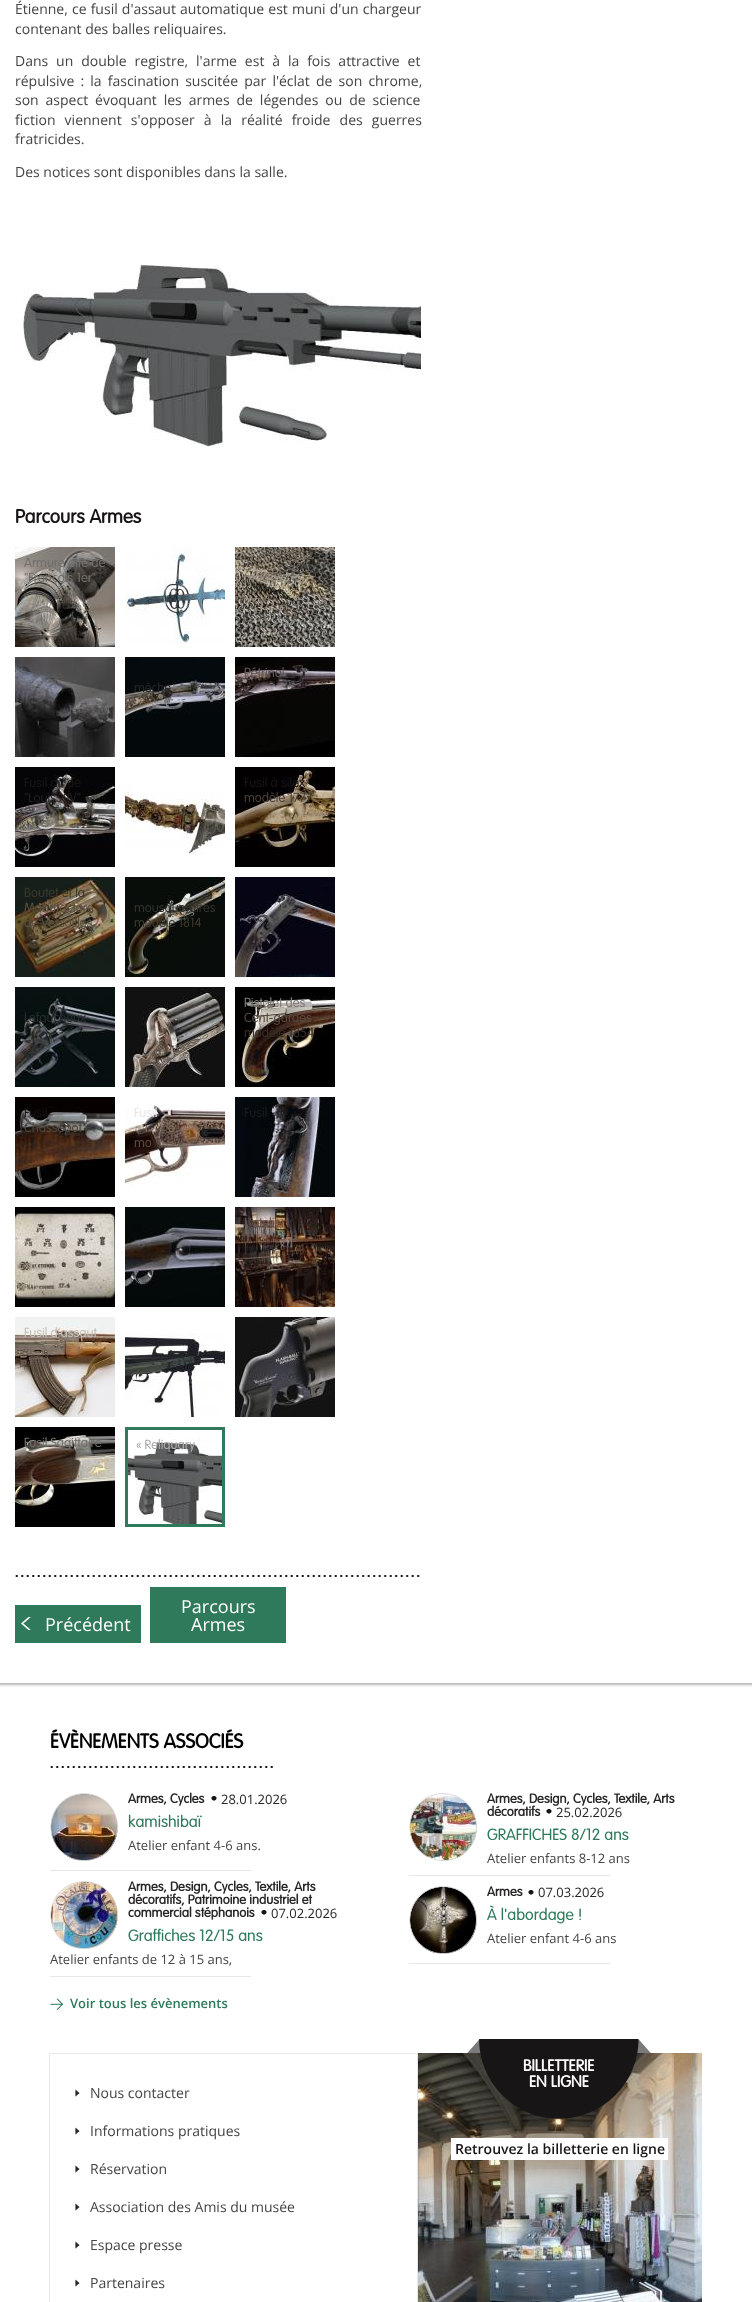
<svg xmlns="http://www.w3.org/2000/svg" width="752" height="2302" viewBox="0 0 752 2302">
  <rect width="100%" height="100%" fill="#fff"/>
  <image x="15" y="1575" width="405" height="2" href="img/1.png"/>
  <image x="23" y="265" width="398" height="184" href="img/2.png"/>
  <image x="15" y="547" width="100" height="100" href="img/3.png"/>
  <image x="125" y="547" width="100" height="96" href="img/4.png"/>
  <image x="235" y="547" width="100" height="100" href="img/5.png"/>
  <image x="15" y="657" width="100" height="100" href="img/6.png"/>
  <image x="235" y="657" width="100" height="100" href="img/7.png"/>
  <image x="125" y="657" width="100" height="100" href="img/8.png"/>
  <image x="15" y="767" width="100" height="100" href="img/9.png"/>
  <image x="125" y="784" width="100" height="71" href="img/10.png"/>
  <image x="235" y="767" width="100" height="100" href="img/11.png"/>
  <image x="15" y="877" width="100" height="100" href="img/12.png"/>
  <image x="125" y="877" width="100" height="100" href="img/13.png"/>
  <image x="235" y="877" width="100" height="100" href="img/14.png"/>
  <image x="15" y="987" width="100" height="100" href="img/15.png"/>
  <image x="125" y="987" width="100" height="100" href="img/16.png"/>
  <image x="235" y="987" width="100" height="100" href="img/17.png"/>
  <image x="15" y="1097" width="100" height="100" href="img/18.png"/>
  <image x="125" y="1105" width="100" height="80" href="img/19.png"/>
  <image x="235" y="1097" width="100" height="100" href="img/20.png"/>
  <image x="15" y="1207" width="100" height="100" href="img/21.png"/>
  <image x="125" y="1207" width="100" height="100" href="img/22.png"/>
  <image x="235" y="1207" width="100" height="100" href="img/23.png"/>
  <image x="15" y="1317" width="100" height="100" href="img/24.png"/>
  <image x="125" y="1333" width="100" height="84" href="img/25.png"/>
  <image x="235" y="1317" width="100" height="100" href="img/26.png"/>
  <image x="15" y="1427" width="100" height="100" href="img/27.png"/>
  <image x="128" y="1430" width="94" height="94" href="img/28.png"/>
  <path d="M126.5 1428.5h97v97H126.5z" fill="none" stroke="#2e7a5a" stroke-width="3"/>
  <path d="M15 1605h126v38H15z" fill="#2e7a5a"/>
  <image x="21" y="1617" width="10" height="13" href="img/29.png"/>
  <path d="M150 1587h136v56H150z" fill="#2e7a5a"/>
  <image x="0" y="1683" width="752" height="4" href="img/30.png"/>
  <image x="50" y="1766" width="223" height="2" href="img/31.png"/>
  <path d="M50 1870h201v1H50z" fill="#e7e7e7"/>
  <image x="51" y="1794" width="67" height="67" href="img/33.png"/>
  <image x="50" y="1793" width="68" height="68" href="img/32.png"/>
  <image x="211" y="1796" width="6" height="5" href="img/34.png"/>
  <path d="M50 1976h201v1H50z" fill="#e7e7e7"/>
  <image x="51" y="1882" width="67" height="67" href="img/36.png"/>
  <image x="50" y="1881" width="68" height="68" href="img/35.png"/>
  <image x="261" y="1910" width="6" height="5" href="img/34.png"/>
  <path d="M409 1875h201v1H409z" fill="#e7e7e7"/>
  <image x="410" y="1794" width="67" height="67" href="img/38.png"/>
  <image x="409" y="1793" width="68" height="68" href="img/37.png"/>
  <image x="546" y="1809" width="6" height="5" href="img/34.png"/>
  <path d="M409 1963h201v1H409z" fill="#e7e7e7"/>
  <image x="410" y="1887" width="67" height="67" href="img/40.png"/>
  <image x="409" y="1886" width="68" height="68" href="img/39.png"/>
  <image x="528" y="1890" width="6" height="5" href="img/34.png"/>
  <image x="50" y="1998" width="13" height="12" href="img/41.png"/>
  <path d="M49.5 2053.5h368v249H49.5z" fill="none" stroke="#e7e7e7"/>
  <image x="75" y="2089" width="5" height="8" href="img/42.png"/>
  <image x="75" y="2127" width="5" height="8" href="img/42.png"/>
  <image x="75" y="2165" width="5" height="8" href="img/42.png"/>
  <image x="75" y="2203" width="5" height="8" href="img/42.png"/>
  <image x="75" y="2241" width="5" height="8" href="img/42.png"/>
  <image x="75" y="2279" width="5" height="8" href="img/42.png"/>
  <image x="418" y="2053" width="284" height="249" href="img/44.png"/>
  <image x="467" y="2039" width="184" height="80" href="img/43.png"/>
  <path d="M451 2138h217v22H451z" fill="#fff"/>
  <g font-family="Open Sans" font-size="14" fill="#444">
    <text x="15" y="14" word-spacing="0.5">Étienne, ce fusil d'assaut automatique est muni d'un chargeur</text>
    <text x="15" y="34">contenant des balles reliquaires.</text>
    <text x="15" y="66" word-spacing="4.25">Dans un double registre, l'arme est à la fois attractive et</text>
    <text x="15" y="86" word-spacing="2.5">répulsive : la fascination suscitée par l'éclat de son chrome,</text>
    <text x="15" y="105" word-spacing="3.25">son aspect évoquant les armes de légendes ou de science</text>
    <text x="15" y="125" word-spacing="5.5">fiction viennent s'opposer à la réalité froide des guerres</text>
    <text x="15" y="144">fratricides.</text>
    <text x="15" y="177">Des notices sont disponibles dans la salle.</text>
  </g>
  <text x="15" y="523" font-family="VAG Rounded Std" font-size="19" font-weight="bold" fill="#181516">Parcours Armes</text>
  <g font-family="VAG Rounded Std" font-size="13" font-weight="300" fill="#726e6a">
    <text x="24" y="567">Armure dite de</text>
    <text x="24" y="582">"François 1er"</text>
  </g>
  <text x="244" y="582" font-family="VAG Rounded Std" font-size="13" font-weight="300" fill="#8b8274">mailles</text>
  <text x="244" y="677" font-family="VAG Rounded Std" font-size="13" font-weight="300" fill="#5f5556">Pétrinal</text>
  <text x="134" y="692" font-family="VAG Rounded Std" font-size="13" font-weight="300" fill="#222426">mèche</text>
  <text x="24" y="787" font-family="VAG Rounded Std" font-size="13" font-weight="300" fill="#181516">Fusil dit de</text>
  <text x="24" y="802" font-family="VAG Rounded Std" font-size="13" font-weight="300" fill="#211f20">"Louis XIV"</text>
  <text x="244" y="787" font-family="VAG Rounded Std" font-size="13" font-weight="300" fill="#181516">Fusil à silex</text>
  <text x="244" y="802" font-family="VAG Rounded Std" font-size="13" font-weight="300" fill="#493f34">modèle 1777</text>
  <text x="24" y="897" font-family="VAG Rounded Std" font-size="13" font-weight="300" fill="#3a382b">Boutet et la</text>
  <g font-family="VAG Rounded Std" font-size="13" font-weight="300" fill="#5d503c">
    <text x="24" y="912">Manufacture</text>
    <text x="24" y="927">de Versailles</text>
  </g>
  <text x="134" y="912" font-family="VAG Rounded Std" font-size="13" font-weight="300" fill="#31322d">mousquetaires</text>
  <text x="134" y="927" font-family="VAG Rounded Std" font-size="13" font-weight="300" fill="#3a382b">modèle 1814</text>
  <text x="24" y="1022" font-family="VAG Rounded Std" font-size="13" font-weight="300" fill="#252c2e">Lefaucheux</text>
  <text x="244" y="1007" font-family="VAG Rounded Std" font-size="13" font-weight="300" fill="#7d7b78">Pistolet des</text>
  <text x="244" y="1022" font-family="VAG Rounded Std" font-size="13" font-weight="300" fill="#584940">Cent-gardes</text>
  <text x="244" y="1037" font-family="VAG Rounded Std" font-size="13" font-weight="300" fill="#382d25">modèle 1854</text>
  <text x="24" y="1117" font-family="VAG Rounded Std" font-size="13" font-weight="300" fill="#181516">Fusil</text>
  <text x="24" y="1132" font-family="VAG Rounded Std" font-size="13" font-weight="300" fill="#4e453f">Chassepot</text>
  <text x="134" y="1117" font-family="VAG Rounded Std" font-size="13" font-weight="300" fill="#e9e8e9">Fusil</text>
  <g font-family="VAG Rounded Std" font-size="13" font-weight="300" fill="#806c5f">
    <text x="145" y="1132">i</text>
    <text x="168" y="1132">e</text>
  </g>
  <text x="134" y="1147" font-family="VAG Rounded Std" font-size="13" font-weight="300" fill="#584940">mo</text>
  <text x="244" y="1117" font-family="VAG Rounded Std" font-size="13" font-weight="300" fill="#191a1e">Fusil</text>
  <text x="244" y="1227" font-family="VAG Rounded Std" font-size="13" font-weight="300" fill="#6d5547">L'atelier</text>
  <text x="24" y="1337" font-family="VAG Rounded Std" font-size="13" font-weight="300" fill="#c6bfb7">Fusil d’assaut</text>
  <text x="94" y="1352" font-family="VAG Rounded Std" font-size="13" font-weight="300" fill="#8c7258">”</text>
  <text x="24" y="1447" font-family="VAG Rounded Std" font-size="13" font-weight="300" fill="#726e6a">Fusil Sagittaire</text>
  <text x="136" y="1449" font-family="VAG Rounded Std" font-size="13" font-weight="300" fill="#ababab">« Reliquary</text>
  <g font-family="Open Sans" font-size="18" fill="#fff">
    <text x="45" y="1631">Précédent</text>
    <text x="181" y="1613">Parcours</text>
    <text x="191" y="1631">Armes</text>
  </g>
  <text x="50" y="1748" font-family="VAG Rounded Std" font-size="20" font-weight="bold" fill="#000">ÉVÈNEMENTS ASSOCIÉS</text>
  <text x="128" y="1803" font-family="VAG Rounded Std" font-size="13" font-weight="bold" fill="#282627">Armes, Cycles</text>
  <text x="221" y="1804" font-family="Open Sans" font-size="13" fill="#282627">28.01.2026</text>
  <text x="128" y="1827" font-family="VAG Rounded Std" font-size="16" font-weight="300" fill="#2e7a5a">kamishibaï</text>
  <text x="128" y="1850" font-family="Open Sans" font-size="13" fill="#444">Atelier enfant 4-6 ans.</text>
  <g font-family="VAG Rounded Std" font-size="13" font-weight="bold" fill="#282627">
    <text x="128" y="1891">Armes, Design, Cycles, Textile, Arts</text>
    <text x="128" y="1904">décoratifs, Patrimoine industriel et</text>
    <text x="128" y="1917">commercial stéphanois</text>
  </g>
  <text x="271" y="1918" font-family="Open Sans" font-size="13" fill="#282627">07.02.2026</text>
  <text x="128" y="1941" font-family="VAG Rounded Std" font-size="16" font-weight="300" fill="#2e7a5a">Graffiches 12/15 ans</text>
  <text x="50" y="1964" font-family="Open Sans" font-size="13" fill="#444">Atelier enfants de 12 à 15 ans,</text>
  <g font-family="VAG Rounded Std" font-size="13" font-weight="bold" fill="#282627">
    <text x="487" y="1803">Armes, Design, Cycles, Textile, Arts</text>
    <text x="487" y="1816">décoratifs</text>
  </g>
  <text x="556" y="1817" font-family="Open Sans" font-size="13" fill="#282627">25.02.2026</text>
  <text x="487" y="1840" font-family="VAG Rounded Std" font-size="16" font-weight="300" fill="#2e7a5a">GRAFFICHES 8/12 ans</text>
  <text x="487" y="1863" font-family="Open Sans" font-size="13" fill="#444">Atelier enfants 8-12 ans</text>
  <text x="487" y="1896" font-family="VAG Rounded Std" font-size="13" font-weight="bold" fill="#282627">Armes</text>
  <text x="538" y="1897" font-family="Open Sans" font-size="13" fill="#282627">07.03.2026</text>
  <text x="487" y="1920" font-family="VAG Rounded Std" font-size="16" font-weight="300" fill="#2e7a5a">À l'abordage !</text>
  <text x="487" y="1943" font-family="Open Sans" font-size="13" fill="#444">Atelier enfant 4-6 ans</text>
  <text x="70" y="2008" font-family="Open Sans" font-size="13" font-weight="600" fill="#2e7a5a">Voir tous les évènements</text>
  <g font-family="Open Sans" font-size="14" fill="#444">
    <text x="90" y="2098">Nous contacter</text>
    <text x="90" y="2136">Informations pratiques</text>
    <text x="90" y="2174">Réservation</text>
    <text x="90" y="2212">Association des Amis du musée</text>
    <text x="90" y="2250">Espace presse</text>
    <text x="90" y="2288">Partenaires</text>
  </g>
  <g font-family="VAG Rounded Std" font-size="16" font-weight="bold" fill="#fff">
    <text x="523" y="2071">BILLETTERIE</text>
    <text x="529" y="2087">EN LIGNE</text>
  </g>
  <text x="455" y="2154" font-family="Open Sans" font-size="14" font-weight="600" fill="#181516">Retrouvez la billetterie en ligne</text>
</svg>
